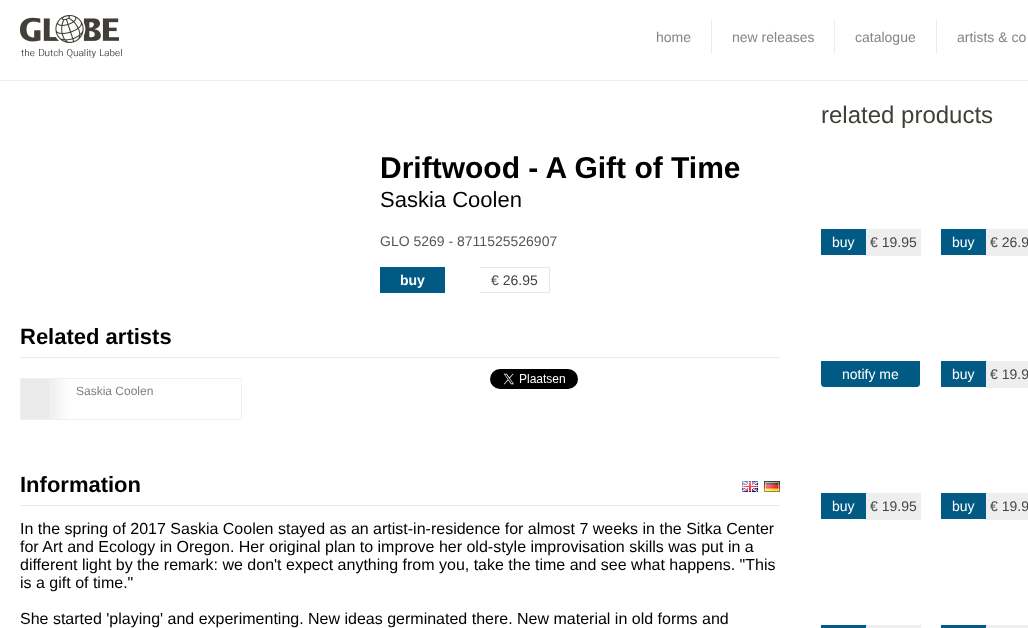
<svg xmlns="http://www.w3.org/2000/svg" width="1028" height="628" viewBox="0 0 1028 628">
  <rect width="100%" height="100%" fill="#fff"/>
  <path d="M0 80h1028v1H0z" fill="#ececec"/>
  <image x="20" y="15" width="102" height="43" href="img/1.png"/>
  <path d="M711 20h1v34H711z" fill="#eeece8"/>
  <path d="M834 20h1v34H834z" fill="#eeece8"/>
  <path d="M936 20h1v34H936z" fill="#eeece8"/>
  <path d="M380 267h65v26H380z" fill="#005a84"/>
  <path d="M480 267h70v1H480z" fill="#e6e6e6"/>
  <path d="M549 267h1v26H549z" fill="#e6e6e6"/>
  <path d="M480 292h70v1H480z" fill="#e6e6e6"/>
  <image x="490" y="369" width="88" height="20" href="img/2.png"/>
  <path d="M20 357h760v1H20z" fill="#eaeaea"/>
  <path d="M20.5 378.5h221v41H20.5z" fill="none" stroke="#f0f0f0"/>
  <path d="M21 379h51v40H21z" fill="#eaeaea"/>
  <image x="49" y="379" width="72" height="40" href="img/3.png"/>
  <path d="M20 505h760v1H20z" fill="#eaeaea"/>
  <image x="742" y="481" width="16" height="11" href="img/4.png"/>
  <image x="764" y="481" width="16" height="11" href="img/5.png"/>
  <path d="M821 229h45v26H821z" fill="#005a84"/>
  <path d="M866 229h55v27H866z" fill="#eee"/>
  <path d="M941 229h45v26H941z" fill="#005a84"/>
  <path d="M986 229h42v27H986z" fill="#eee"/>
  <path d="M821 361H920V384C920 385.5 918.5 387 917 387H824C822.5 387 821 385.5 821 384Z" fill="#005a84"/>
  <path d="M941 361h45v26H941z" fill="#005a84"/>
  <path d="M986 361h42v27H986z" fill="#eee"/>
  <path d="M821 493h45v26H821z" fill="#005a84"/>
  <path d="M866 493h55v27H866z" fill="#eee"/>
  <path d="M941 493h45v26H941z" fill="#005a84"/>
  <path d="M986 493h42v27H986z" fill="#eee"/>
  <path d="M821 625h45v3H821z" fill="#005a84"/>
  <path d="M866 625h55v3H866z" fill="#eee"/>
  <path d="M941 625h45v3H941z" fill="#005a84"/>
  <path d="M986 625h42v3H986z" fill="#eee"/>
  <g font-family="Liberation Sans" font-size="14" fill="#868582">
    <text x="656" y="42">home</text>
    <text x="732" y="42">new releases</text>
    <text x="855" y="42">catalogue</text>
    <text x="957" y="42">artists &amp; co</text>
  </g>
  <text x="380" y="178" font-family="Liberation Sans" font-size="30" font-weight="bold" fill="#000">Driftwood - A Gift of Time</text>
  <text x="380" y="207" font-family="Liberation Sans" font-size="22" fill="#000">Saskia Coolen</text>
  <text x="380" y="246" font-family="Liberation Sans" font-size="14" fill="#565656">GLO 5269 - 8711525526907</text>
  <text x="400" y="285" font-family="Liberation Sans" font-size="14" font-weight="bold" fill="#fff">buy</text>
  <text x="491" y="285" font-family="Liberation Sans" font-size="14" fill="#413f38">€ 26.95</text>
  <text x="20" y="344" font-family="Liberation Sans" font-size="22" font-weight="bold" fill="#000">Related artists</text>
  <text x="76" y="395" font-family="Liberation Sans" font-size="12" fill="#7e7e7e">Saskia Coolen</text>
  <text x="20" y="492" font-family="Liberation Sans" font-size="22" font-weight="bold" fill="#000">Information</text>
  <g font-family="Liberation Sans" font-size="16" fill="#000">
    <text x="20" y="534">In the spring of 2017 Saskia Coolen stayed as an artist-in-residence for almost 7 weeks in the Sitka Center</text>
    <text x="20" y="552">for Art and Ecology in Oregon. Her original plan to improve her old-style improvisation skills was put in a</text>
    <text x="20" y="570">different light by the remark: we don't expect anything from you, take the time and see what happens. "This</text>
    <text x="20" y="588">is a gift of time."</text>
    <text x="20" y="624">She started 'playing' and experimenting. New ideas germinated there. New material in old forms and</text>
  </g>
  <text x="821" y="123" font-family="Liberation Sans" font-size="24" fill="#413f38">related products</text>
  <text x="832" y="247" font-family="Liberation Sans" font-size="14" fill="#fff">buy</text>
  <text x="870" y="247" font-family="Liberation Sans" font-size="14" fill="#444">€ 19.95</text>
  <text x="952" y="247" font-family="Liberation Sans" font-size="14" fill="#fff">buy</text>
  <text x="990" y="247" font-family="Liberation Sans" font-size="14" fill="#444">€ 26.9</text>
  <g font-family="Liberation Sans" font-size="14" fill="#fff">
    <text x="842" y="379">notify me</text>
    <text x="952" y="379">buy</text>
  </g>
  <text x="990" y="379" font-family="Liberation Sans" font-size="14" fill="#444">€ 19.9</text>
  <text x="832" y="511" font-family="Liberation Sans" font-size="14" fill="#fff">buy</text>
  <text x="870" y="511" font-family="Liberation Sans" font-size="14" fill="#444">€ 19.95</text>
  <text x="952" y="511" font-family="Liberation Sans" font-size="14" fill="#fff">buy</text>
  <text x="990" y="511" font-family="Liberation Sans" font-size="14" fill="#444">€ 19.9</text>
</svg>
